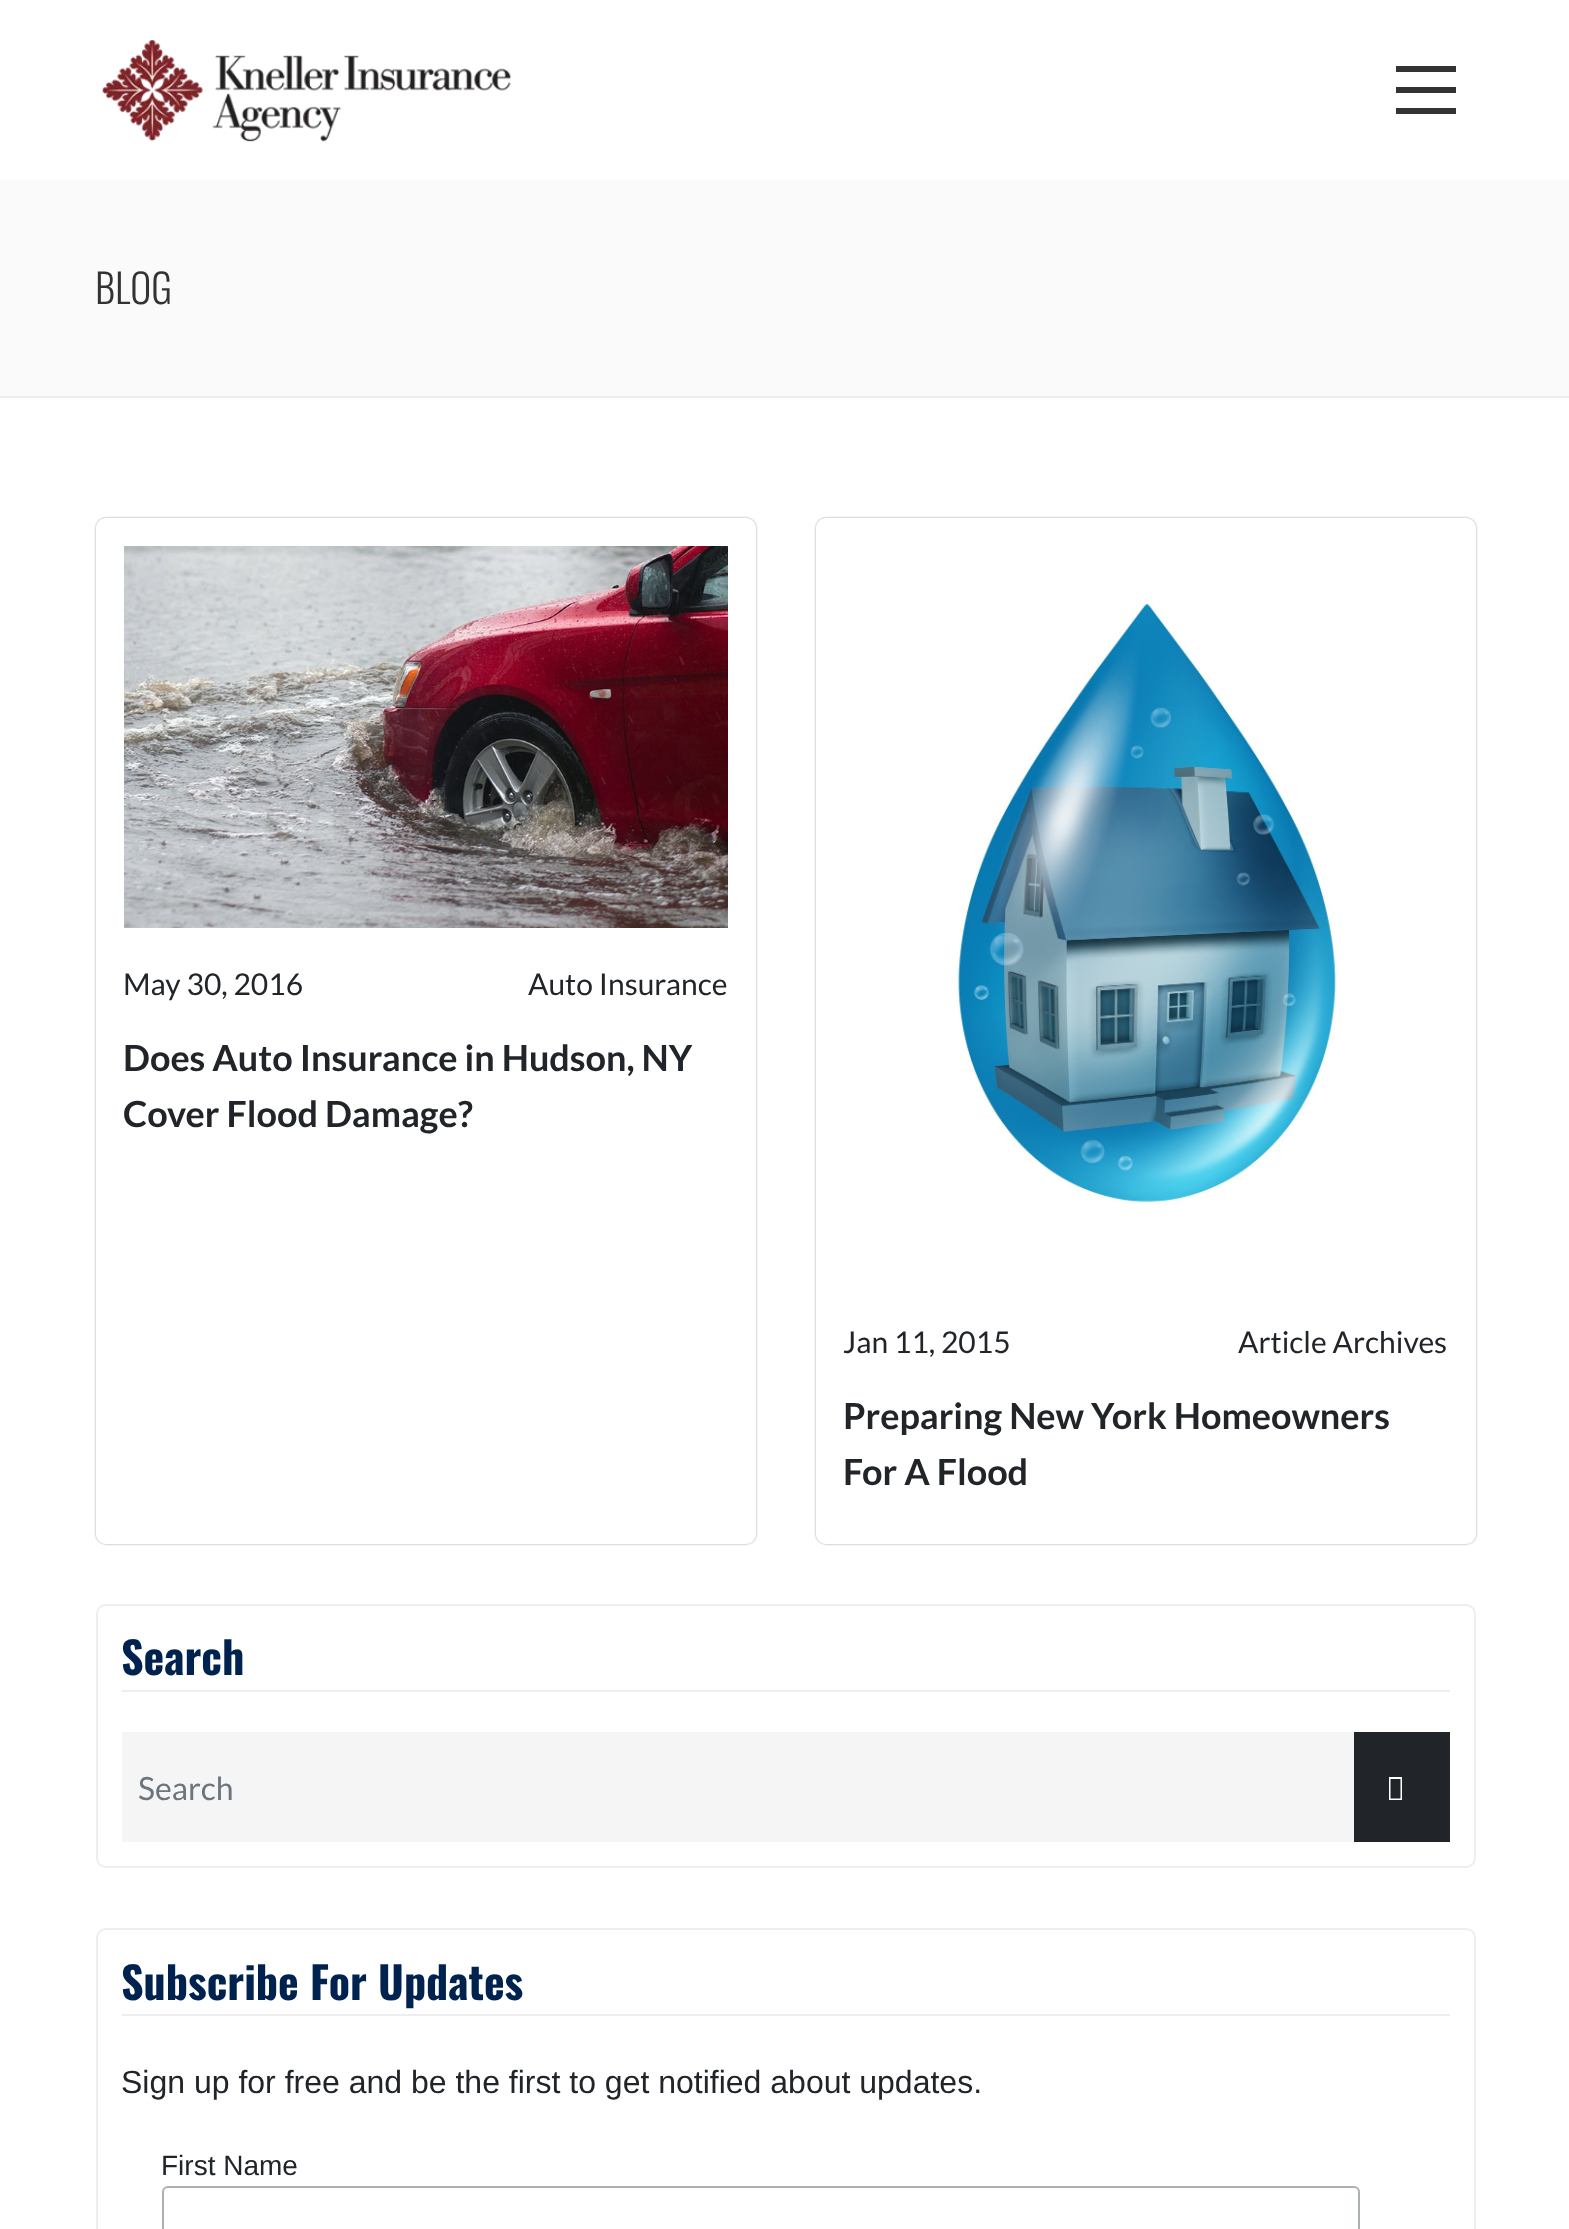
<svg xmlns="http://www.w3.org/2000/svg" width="1569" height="2229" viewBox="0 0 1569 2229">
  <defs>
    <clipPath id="clip1"><path d="M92 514H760V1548H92ZM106 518H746C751.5 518 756 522.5 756 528V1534C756 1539.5 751.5 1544 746 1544H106C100.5 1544 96 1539.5 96 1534V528C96 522.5 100.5 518 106 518Z" clip-rule="evenodd"/></clipPath>
    <clipPath id="clip2"><path d="M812 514H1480V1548H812ZM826 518H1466C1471.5 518 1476 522.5 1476 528V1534C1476 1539.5 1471.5 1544 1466 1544H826C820.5 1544 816 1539.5 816 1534V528C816 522.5 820.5 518 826 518Z" clip-rule="evenodd"/></clipPath>
  </defs>
  <rect width="100%" height="100%" fill="#fff"/>
  <image x="102" y="40" width="409" height="102" href="img/1.png"/>
  <path d="M1396 66h60v6H1396z" fill="#333"/>
  <path d="M1396 87h60v6H1396z" fill="#333"/>
  <path d="M1396 108h60v6H1396z" fill="#333"/>
  <path d="M0 180h1569v216H0z" fill="#fafafa"/>
  <path d="M0 396h1569v2H0z" fill="#eee"/>
  <g clip-path="url(#clip1)">
    <rect x="96" y="518" width="660" height="1026" rx="10" fill="#999" filter="blur(1px)"/>
  </g>
  <image x="124" y="546" width="604" height="382" href="img/2.png"/>
  <g clip-path="url(#clip2)">
    <rect x="816" y="518" width="660" height="1026" rx="10" fill="#999" filter="blur(1px)"/>
  </g>
  <image x="957" y="602" width="382" height="603" href="img/3.png"/>
  <rect x="97" y="1605" width="1378" height="262" rx="9" fill="none" stroke="#eee" stroke-width="2"/>
  <path d="M122 1690h1328v2H122z" fill="#eee"/>
  <path d="M124 1734h1230v106H124z" fill="#f5f5f6"/>
  <path d="M123 1733h1326v108H123z" fill="none" stroke="#f5f5f6" stroke-width="2"/>
  <path d="M1354 1732h96v110H1354z" fill="#212529"/>
  <path d="M1389 1800V1777H1402V1800ZM1390.5 1798.5H1400.5V1779H1390.5Z" fill="#fff"/>
  <rect x="97" y="1929" width="1378" height="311" rx="9" fill="none" stroke="#eee" stroke-width="2"/>
  <path d="M122 2014h1328v2H122z" fill="#eee"/>
  <rect x="163" y="2187" width="1196" height="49" rx="5" fill="none" stroke="#abb0b2" stroke-width="2"/>
  <text x="95" y="304" font-family="Oswald" font-size="40" font-weight="300" fill="#333">BLOG</text>
  <g font-family="Lato" font-size="30" fill="#212529">
    <text x="123" y="995">May 30, 2016</text>
    <text x="528" y="995">Auto Insurance</text>
  </g>
  <g font-family="Lato" font-size="36" font-weight="bold" fill="#212529">
    <text x="123" y="1071">Does Auto Insurance in Hudson, NY</text>
    <text x="123" y="1127">Cover Flood Damage?</text>
  </g>
  <g font-family="Lato" font-size="30" fill="#212529">
    <text x="843" y="1353">Jan 11, 2015</text>
    <text x="1238" y="1353">Article Archives</text>
  </g>
  <g font-family="Lato" font-size="36" font-weight="bold" fill="#212529">
    <text x="843" y="1429">Preparing New York Homeowners</text>
    <text x="843" y="1485">For A Flood</text>
  </g>
  <text x="121" y="1675" font-family="Oswald" font-size="44" font-weight="bold" fill="#00224f">Search</text>
  <text x="138" y="1800" font-family="Lato" font-size="32" fill="#6c757d">Search</text>
  <text x="121" y="2000" font-family="Oswald" font-size="44" font-weight="bold" fill="#00224f">Subscribe For Updates</text>
  <text x="121" y="2093" font-family="Liberation Sans" font-size="32" fill="#212529">Sign up for free and be the first to get notified about updates.</text>
  <text x="161" y="2175" font-family="Liberation Sans" font-size="28" fill="#212529">First Name</text>
</svg>
